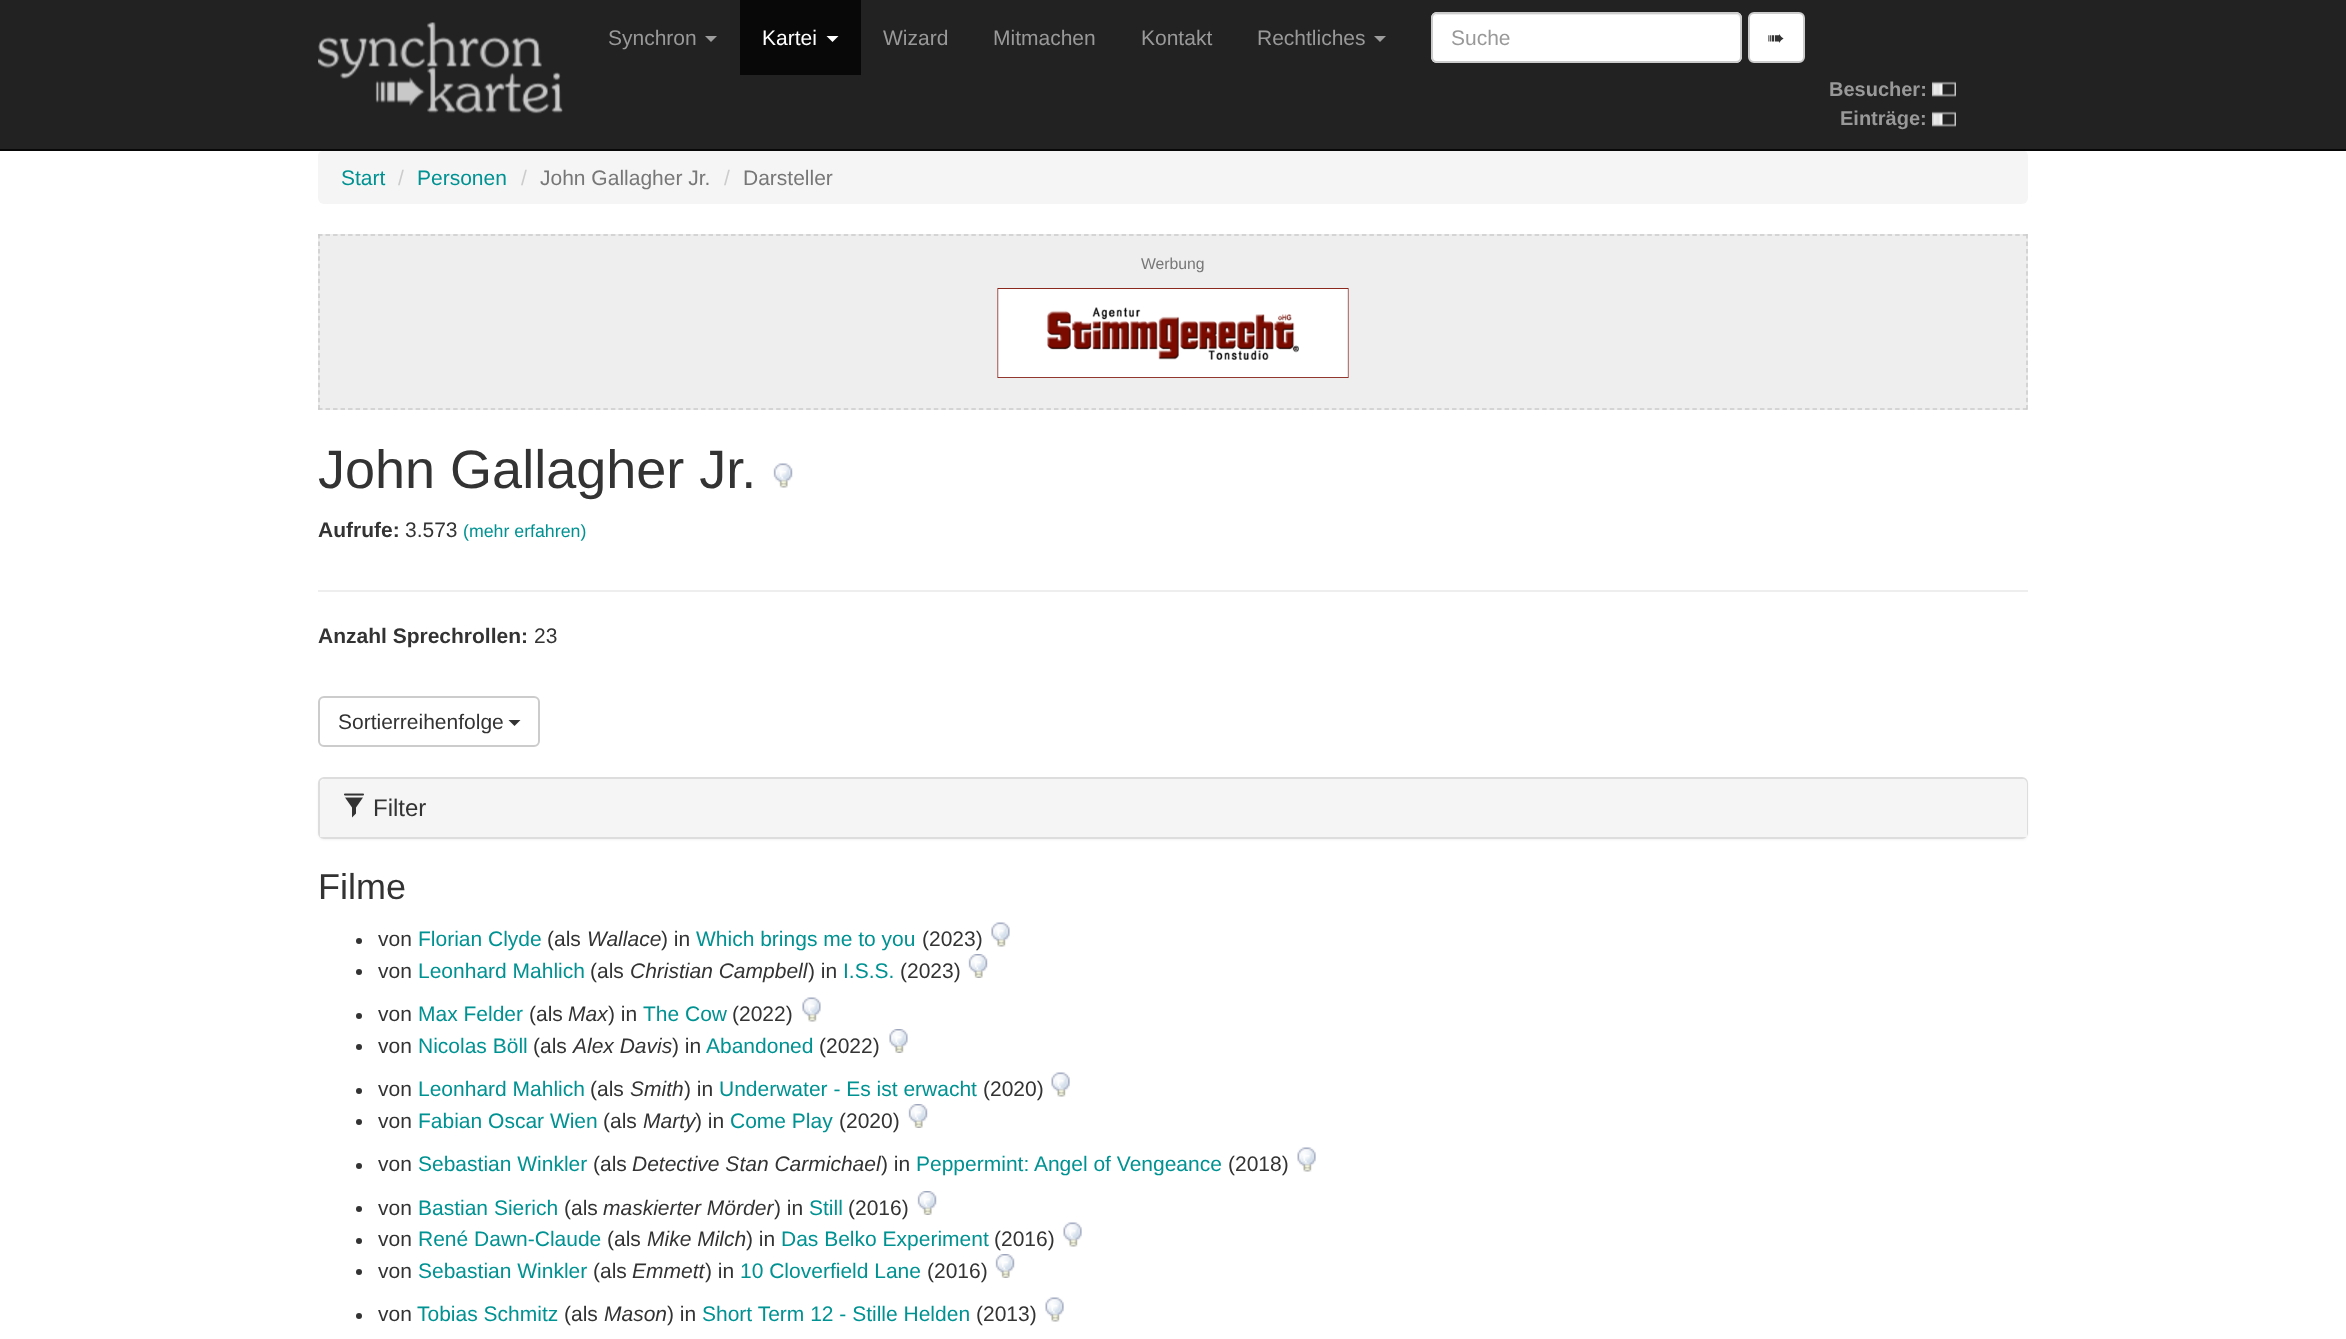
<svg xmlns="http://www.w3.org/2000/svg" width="2346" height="1339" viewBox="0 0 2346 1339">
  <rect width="100%" height="100%" fill="#fff"/>
  <path d="M0 0h2346v149H0z" fill="#222"/>
  <rect x="318" y="150" width="1710" height="54" rx="6" fill="#f5f5f5"/>
  <path d="M0 149h2346v2H0z" fill="#080808"/>
  <image x="318" y="22" width="245" height="92" href="img/1.png"/>
  <path d="M705 36H717L711 42Z" fill="#9d9d9d"/>
  <path d="M740 0h121v75H740z" fill="#080808"/>
  <path d="M826.5 36H838.5L832.5 42Z" fill="#fff"/>
  <path d="M1374 36H1386L1380 42Z" fill="#9d9d9d"/>
  <rect x="1431" y="12" width="311" height="51" rx="6" fill="#fff"/>
  <path d="M1437 15H1736C1738 15 1740 17 1740 20V19C1740 16 1738 14 1735 14H1438C1436 14 1435 15 1434 16Z" fill="#ececec"/>
  <rect x="1432" y="13" width="309" height="49" rx="5" fill="none" stroke="#ccc" stroke-width="2"/>
  <rect x="1749" y="13" width="55" height="49" rx="5" fill="#fff" stroke="#ccc" stroke-width="2"/>
  <image x="1932" y="81" width="24" height="16" href="img/2.png"/>
  <image x="1932" y="111" width="24" height="16" href="img/2.png"/>
  <path d="M318 234h1710v176H318z" fill="#eee"/>
  <path d="M318 235H2028" fill="none" stroke="#ccc" stroke-width="1.5" stroke-dasharray="4.5 3.01"/>
  <path d="M2027 234V409.5" fill="none" stroke="#ccc" stroke-width="1.5" stroke-dasharray="4.5 2.94"/>
  <path d="M318 409H2028" fill="none" stroke="#ccc" stroke-width="1.5" stroke-dasharray="4.5 3.01"/>
  <path d="M319 234V409.5" fill="none" stroke="#ccc" stroke-width="1.5" stroke-dasharray="4.5 2.94"/>
  <image x="997" y="288" width="352" height="90" href="img/3.png"/>
  <image x="773" y="463" width="20" height="25" href="img/4.png"/>
  <path d="M318 590h1710v2H318z" fill="#eee"/>
  <rect x="319" y="697" width="220" height="49" rx="5" fill="none" stroke="#ccc" stroke-width="2"/>
  <path d="M508.5 720H520.5L514.5 726Z" fill="#333"/>
  <rect x="318" y="779" width="1710" height="61" rx="6" fill="#0000000d" filter="blur(1px)"/>
  <rect x="319" y="778" width="1708" height="60" rx="5" fill="#fff" stroke="#ddd" stroke-width="2"/>
  <path d="M325 779H2022C2025 779 2027 781 2027 784V837H320V784C320 781 322 779 325 779Z" fill="#f5f5f5"/>
  <image x="344" y="793" width="20" height="25" href="img/5.png"/>
  <circle cx="359" cy="941" r="3" fill="#333"/>
  <image x="991" y="922" width="19" height="25" href="img/6.png"/>
  <circle cx="359" cy="972" r="3" fill="#333"/>
  <image x="968" y="954" width="20" height="24" href="img/7.png"/>
  <circle cx="359" cy="1016" r="3" fill="#333"/>
  <image x="802" y="997" width="19" height="25" href="img/6.png"/>
  <circle cx="359" cy="1047" r="3" fill="#333"/>
  <image x="889" y="1029" width="19" height="24" href="img/8.png"/>
  <circle cx="359" cy="1091" r="3" fill="#333"/>
  <image x="1051" y="1072" width="19" height="25" href="img/9.png"/>
  <circle cx="359" cy="1122" r="3" fill="#333"/>
  <image x="908" y="1104" width="20" height="24" href="img/7.png"/>
  <circle cx="359" cy="1166" r="3" fill="#333"/>
  <image x="1297" y="1147" width="19" height="25" href="img/9.png"/>
  <circle cx="359" cy="1209" r="3" fill="#333"/>
  <image x="917" y="1191" width="20" height="24" href="img/7.png"/>
  <circle cx="359" cy="1241" r="3" fill="#333"/>
  <image x="1063" y="1222" width="19" height="25" href="img/9.png"/>
  <circle cx="359" cy="1272" r="3" fill="#333"/>
  <image x="995" y="1254" width="20" height="24" href="img/7.png"/>
  <circle cx="359" cy="1316" r="3" fill="#333"/>
  <image x="1045" y="1297" width="19" height="25" href="img/9.png"/>
  <text x="608" y="45" font-family="Liberation Sans" font-size="21" fill="#999">Synchron</text>
  <text x="762" y="45" font-family="Liberation Sans" font-size="21" fill="#fff">Kartei</text>
  <g font-family="Liberation Sans" font-size="21" fill="#999">
    <text x="883" y="45">Wizard</text>
    <text x="993" y="45">Mitmachen</text>
    <text x="1141" y="45">Kontakt</text>
    <text x="1257" y="45">Rechtliches</text>
    <text x="1451" y="45">Suche</text>
  </g>
  <text x="1767" y="45" font-family="DejaVu Sans" font-size="21" fill="#333">➠</text>
  <g font-family="Liberation Sans" font-size="20" font-weight="bold" fill="#999">
    <text x="1829" y="96">Besucher:</text>
    <text x="1840" y="125">Einträge:</text>
  </g>
  <text x="341" y="185" font-family="Liberation Sans" font-size="21" fill="#009292">Start</text>
  <text x="398" y="185" font-family="Liberation Sans" font-size="21" fill="#ccc">/</text>
  <text x="417" y="185" font-family="Liberation Sans" font-size="21" fill="#009292">Personen</text>
  <text x="521" y="185" font-family="Liberation Sans" font-size="21" fill="#ccc">/</text>
  <text x="540" y="185" font-family="Liberation Sans" font-size="21" fill="#777">John Gallagher Jr.</text>
  <text x="724" y="185" font-family="Liberation Sans" font-size="21" fill="#ccc">/</text>
  <text x="743" y="185" font-family="Liberation Sans" font-size="21" fill="#777">Darsteller</text>
  <text x="1141" y="269" font-family="Liberation Sans" font-size="15.75" fill="#777">Werbung</text>
  <text x="318" y="488" font-family="Liberation Sans" font-size="54" fill="#333">John Gallagher Jr.</text>
  <text x="318" y="537" font-family="Liberation Sans" font-size="21" font-weight="bold" fill="#333">Aufrufe:</text>
  <text x="405" y="537" font-family="Liberation Sans" font-size="21" fill="#333">3.573</text>
  <text x="463" y="537" font-family="Liberation Sans" font-size="17.75" fill="#009292">(mehr erfahren)</text>
  <text x="318" y="643" font-family="Liberation Sans" font-size="21" font-weight="bold" fill="#333">Anzahl Sprechrollen:</text>
  <g font-family="Liberation Sans" font-size="21" fill="#333">
    <text x="534" y="643">23</text>
    <text x="338" y="729">Sortierreihenfolge</text>
  </g>
  <text x="373" y="816" font-family="Liberation Sans" font-size="24" fill="#333">Filter</text>
  <text x="318" y="899" font-family="Liberation Sans" font-size="36" fill="#333">Filme</text>
  <text x="378" y="946" font-family="Liberation Sans" font-size="21" fill="#333">von</text>
  <text x="418" y="946" font-family="Liberation Sans" font-size="21" fill="#009292">Florian Clyde</text>
  <text x="547" y="946" font-family="Liberation Sans" font-size="21" fill="#333">(als</text>
  <text x="587" y="946" font-family="Liberation Sans" font-size="21" font-style="italic" fill="#333">Wallace</text>
  <text x="661" y="946" font-family="Liberation Sans" font-size="21" fill="#333">) in</text>
  <text x="696" y="946" font-family="Liberation Sans" font-size="21" fill="#009292">Which brings me to you</text>
  <g font-family="Liberation Sans" font-size="21" fill="#333">
    <text x="922" y="946">(2023)</text>
    <text x="378" y="978">von</text>
  </g>
  <text x="418" y="978" font-family="Liberation Sans" font-size="21" fill="#009292">Leonhard Mahlich</text>
  <text x="590" y="978" font-family="Liberation Sans" font-size="21" fill="#333">(als</text>
  <text x="630" y="978" font-family="Liberation Sans" font-size="21" font-style="italic" fill="#333">Christian Campbell</text>
  <text x="808" y="978" font-family="Liberation Sans" font-size="21" fill="#333">) in</text>
  <text x="843" y="978" font-family="Liberation Sans" font-size="21" fill="#009292">I.S.S.</text>
  <g font-family="Liberation Sans" font-size="21" fill="#333">
    <text x="900" y="978">(2023)</text>
    <text x="378" y="1021">von</text>
  </g>
  <text x="418" y="1021" font-family="Liberation Sans" font-size="21" fill="#009292">Max Felder</text>
  <text x="529" y="1021" font-family="Liberation Sans" font-size="21" fill="#333">(als</text>
  <text x="568" y="1021" font-family="Liberation Sans" font-size="21" font-style="italic" fill="#333">Max</text>
  <text x="608" y="1021" font-family="Liberation Sans" font-size="21" fill="#333">) in</text>
  <text x="643" y="1021" font-family="Liberation Sans" font-size="21" fill="#009292">The Cow</text>
  <g font-family="Liberation Sans" font-size="21" fill="#333">
    <text x="732" y="1021">(2022)</text>
    <text x="378" y="1053">von</text>
  </g>
  <text x="418" y="1053" font-family="Liberation Sans" font-size="21" fill="#009292">Nicolas Böll</text>
  <text x="533" y="1053" font-family="Liberation Sans" font-size="21" fill="#333">(als</text>
  <text x="573" y="1053" font-family="Liberation Sans" font-size="21" font-style="italic" fill="#333">Alex Davis</text>
  <text x="672" y="1053" font-family="Liberation Sans" font-size="21" fill="#333">) in</text>
  <text x="706" y="1053" font-family="Liberation Sans" font-size="21" fill="#009292">Abandoned</text>
  <g font-family="Liberation Sans" font-size="21" fill="#333">
    <text x="819" y="1053">(2022)</text>
    <text x="378" y="1096">von</text>
  </g>
  <text x="418" y="1096" font-family="Liberation Sans" font-size="21" fill="#009292">Leonhard Mahlich</text>
  <text x="590" y="1096" font-family="Liberation Sans" font-size="21" fill="#333">(als</text>
  <text x="630" y="1096" font-family="Liberation Sans" font-size="21" font-style="italic" fill="#333">Smith</text>
  <text x="684" y="1096" font-family="Liberation Sans" font-size="21" fill="#333">) in</text>
  <text x="719" y="1096" font-family="Liberation Sans" font-size="21" fill="#009292">Underwater - Es ist erwacht</text>
  <g font-family="Liberation Sans" font-size="21" fill="#333">
    <text x="983" y="1096">(2020)</text>
    <text x="378" y="1128">von</text>
  </g>
  <text x="418" y="1128" font-family="Liberation Sans" font-size="21" fill="#009292">Fabian Oscar Wien</text>
  <text x="603" y="1128" font-family="Liberation Sans" font-size="21" fill="#333">(als</text>
  <text x="643" y="1128" font-family="Liberation Sans" font-size="21" font-style="italic" fill="#333">Marty</text>
  <text x="695" y="1128" font-family="Liberation Sans" font-size="21" fill="#333">) in</text>
  <text x="730" y="1128" font-family="Liberation Sans" font-size="21" fill="#009292">Come Play</text>
  <g font-family="Liberation Sans" font-size="21" fill="#333">
    <text x="839" y="1128">(2020)</text>
    <text x="378" y="1171">von</text>
  </g>
  <text x="418" y="1171" font-family="Liberation Sans" font-size="21" fill="#009292">Sebastian Winkler</text>
  <text x="593" y="1171" font-family="Liberation Sans" font-size="21" fill="#333">(als</text>
  <text x="632" y="1171" font-family="Liberation Sans" font-size="21" font-style="italic" fill="#333">Detective Stan Carmichael</text>
  <text x="881" y="1171" font-family="Liberation Sans" font-size="21" fill="#333">) in</text>
  <text x="916" y="1171" font-family="Liberation Sans" font-size="21" fill="#009292">Peppermint: Angel of Vengeance</text>
  <g font-family="Liberation Sans" font-size="21" fill="#333">
    <text x="1228" y="1171">(2018)</text>
    <text x="378" y="1215">von</text>
  </g>
  <text x="418" y="1215" font-family="Liberation Sans" font-size="21" fill="#009292">Bastian Sierich</text>
  <text x="564" y="1215" font-family="Liberation Sans" font-size="21" fill="#333">(als</text>
  <text x="603" y="1215" font-family="Liberation Sans" font-size="21" font-style="italic" fill="#333">maskierter Mörder</text>
  <text x="774" y="1215" font-family="Liberation Sans" font-size="21" fill="#333">) in</text>
  <text x="809" y="1215" font-family="Liberation Sans" font-size="21" fill="#009292">Still</text>
  <g font-family="Liberation Sans" font-size="21" fill="#333">
    <text x="848" y="1215">(2016)</text>
    <text x="378" y="1246">von</text>
  </g>
  <text x="418" y="1246" font-family="Liberation Sans" font-size="21" fill="#009292">René Dawn-Claude</text>
  <text x="607" y="1246" font-family="Liberation Sans" font-size="21" fill="#333">(als</text>
  <text x="647" y="1246" font-family="Liberation Sans" font-size="21" font-style="italic" fill="#333">Mike Milch</text>
  <text x="746" y="1246" font-family="Liberation Sans" font-size="21" fill="#333">) in</text>
  <text x="781" y="1246" font-family="Liberation Sans" font-size="21" fill="#009292">Das Belko Experiment</text>
  <g font-family="Liberation Sans" font-size="21" fill="#333">
    <text x="994" y="1246">(2016)</text>
    <text x="378" y="1278">von</text>
  </g>
  <text x="418" y="1278" font-family="Liberation Sans" font-size="21" fill="#009292">Sebastian Winkler</text>
  <text x="593" y="1278" font-family="Liberation Sans" font-size="21" fill="#333">(als</text>
  <text x="632" y="1278" font-family="Liberation Sans" font-size="21" font-style="italic" fill="#333">Emmett</text>
  <text x="705" y="1278" font-family="Liberation Sans" font-size="21" fill="#333">) in</text>
  <text x="740" y="1278" font-family="Liberation Sans" font-size="21" fill="#009292">10 Cloverfield Lane</text>
  <g font-family="Liberation Sans" font-size="21" fill="#333">
    <text x="927" y="1278">(2016)</text>
    <text x="378" y="1321">von</text>
  </g>
  <text x="417" y="1321" font-family="Liberation Sans" font-size="21" fill="#009292">Tobias Schmitz</text>
  <text x="564" y="1321" font-family="Liberation Sans" font-size="21" fill="#333">(als</text>
  <text x="604" y="1321" font-family="Liberation Sans" font-size="21" font-style="italic" fill="#333">Mason</text>
  <text x="667" y="1321" font-family="Liberation Sans" font-size="21" fill="#333">) in</text>
  <text x="702" y="1321" font-family="Liberation Sans" font-size="21" fill="#009292">Short Term 12 - Stille Helden</text>
  <text x="976" y="1321" font-family="Liberation Sans" font-size="21" fill="#333">(2013)</text>
</svg>
